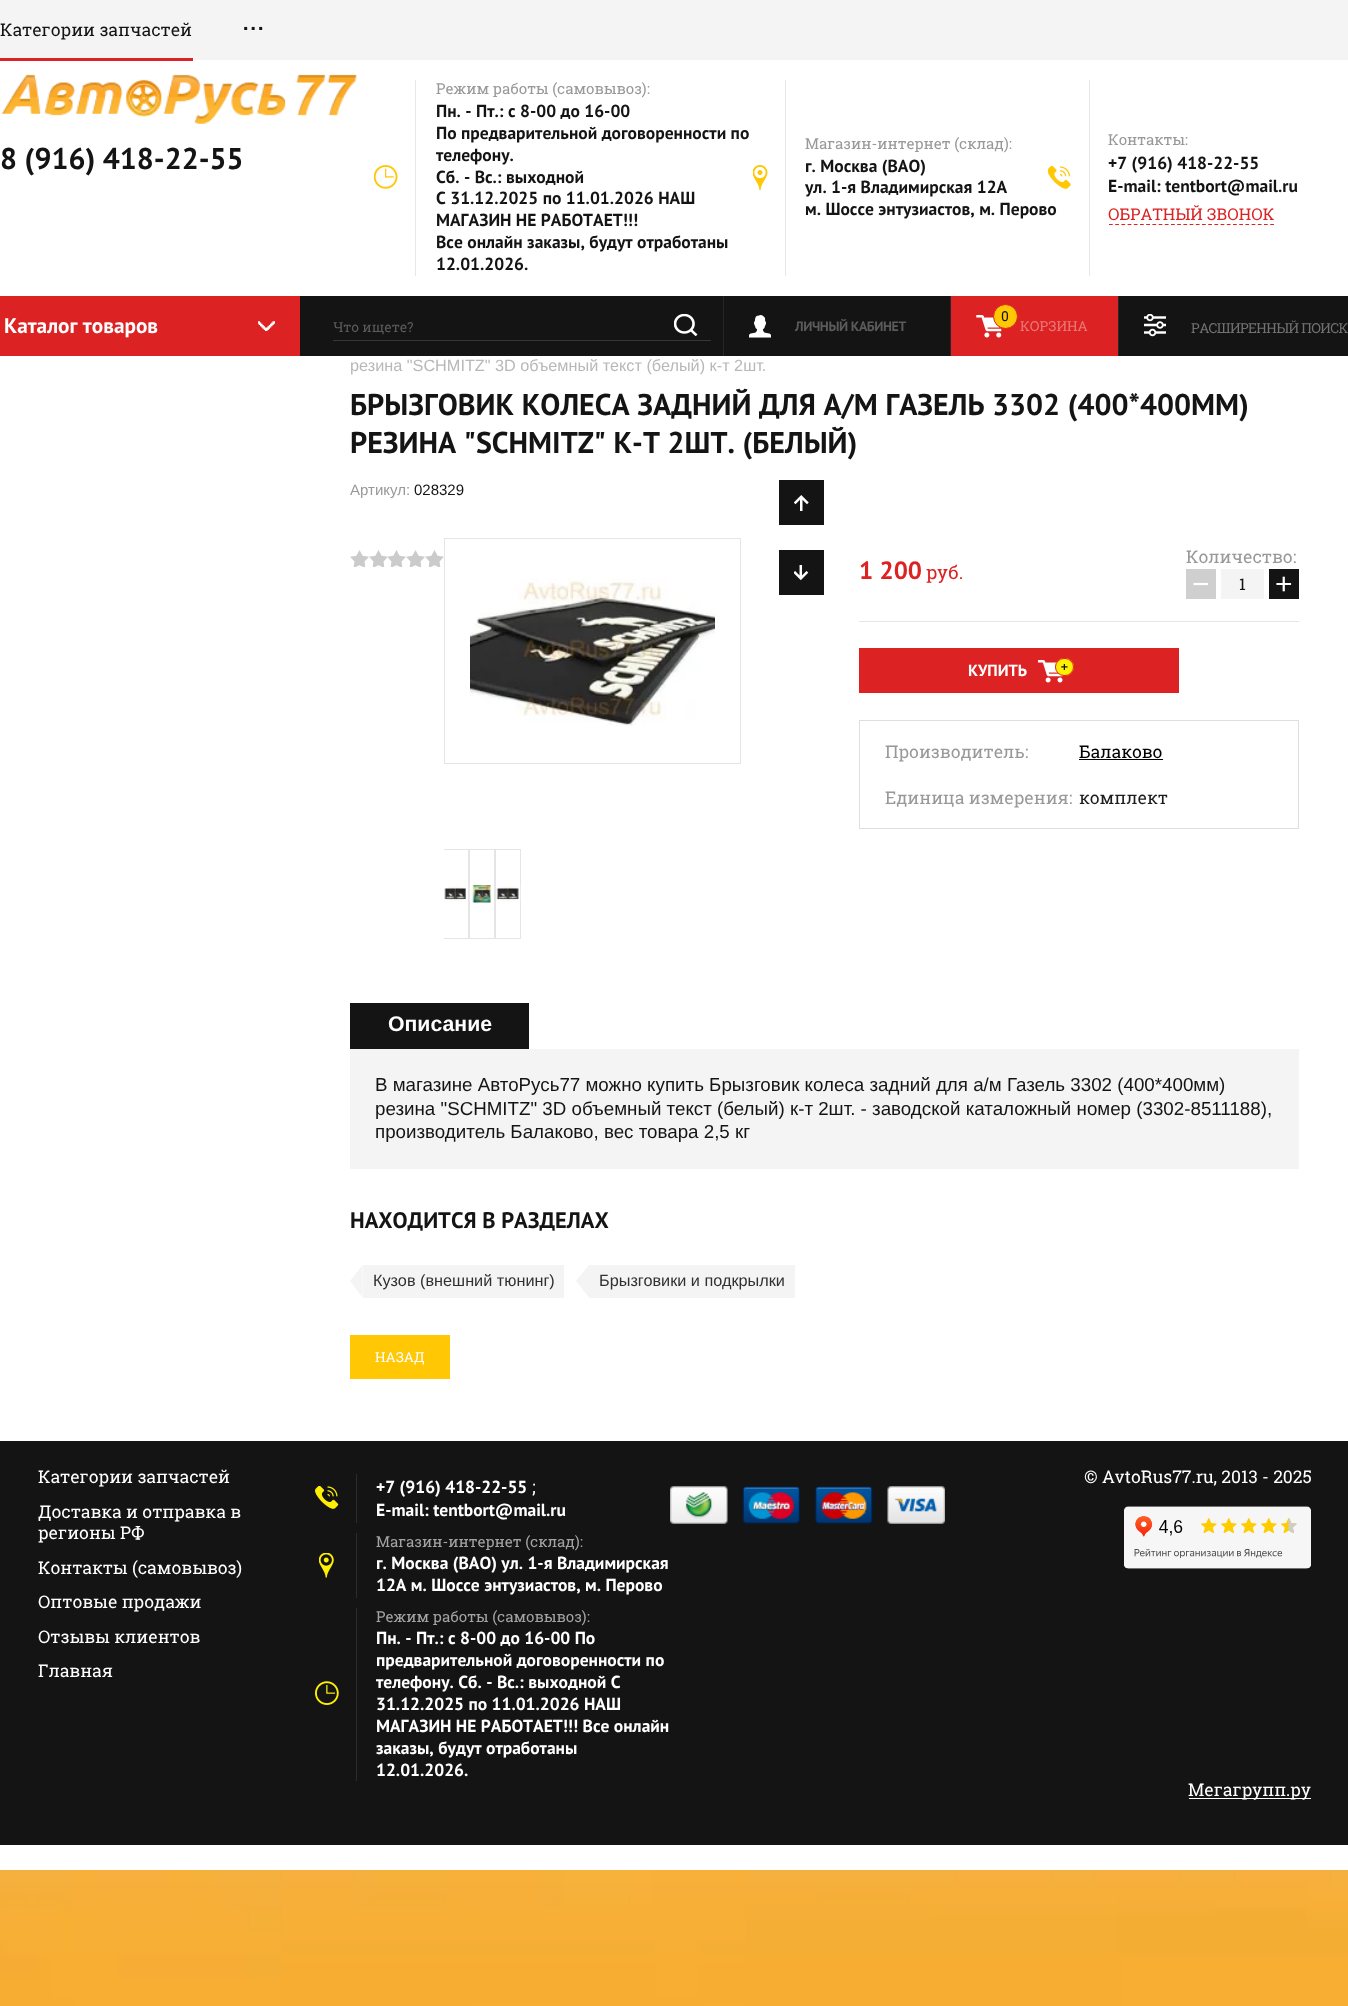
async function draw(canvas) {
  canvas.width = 1348;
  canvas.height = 2006;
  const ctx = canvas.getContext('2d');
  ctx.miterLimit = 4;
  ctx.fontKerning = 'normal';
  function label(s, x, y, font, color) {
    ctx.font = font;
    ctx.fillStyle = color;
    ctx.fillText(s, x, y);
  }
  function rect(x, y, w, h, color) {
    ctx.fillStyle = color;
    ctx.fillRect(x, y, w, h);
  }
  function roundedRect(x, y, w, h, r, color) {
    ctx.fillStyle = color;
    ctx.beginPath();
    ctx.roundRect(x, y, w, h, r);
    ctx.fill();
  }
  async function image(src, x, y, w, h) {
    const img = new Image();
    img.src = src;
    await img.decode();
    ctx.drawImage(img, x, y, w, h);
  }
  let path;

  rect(0, 0, 1348, 2006, '#fff');
  rect(0, 0, 1348, 60, '#f4f4f4');
  label('Категории запчастей', 0, 36, '17.5px Roboto Slab', '#141414');
  rect(0, 58, 193, 3, '#dc2222');
  label('...', 242, 30, '31px Roboto Slab', '#141414');
  await image('assets/img1.png', 1, 74, 356, 50);
  label('8 (916) 418-22-55', 0, 169, 'bold 30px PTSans', '#141414');
  rect(415, 80, 1, 196, '#e7e7e7');
  label('Режим работы (самовывоз):', 436, 94, '15px Roboto Slab', '#999');
  await image('assets/img2.png', 374, 165, 24, 24);
  label('Пн. - Пт.: с 8-00 до 16-00', 436, 117, 'bold 17.5px PTSans', '#141414');
  label('По предварительной договоренности по', 436, 139, 'bold 17.5px PTSans', '#141414');
  label('телефону.', 436, 161, 'bold 17.5px PTSans', '#141414');
  label('Сб. - Вс.: выходной', 436, 183, 'bold 17.5px PTSans', '#141414');
  label('С 31.12.2025 по 11.01.2026 НАШ', 436, 204, 'bold 17.5px PTSans', '#141414');
  label('МАГАЗИН НЕ РАБОТАЕТ!!!', 436, 226, 'bold 17.5px PTSans', '#141414');
  label('Все онлайн заказы, будут отработаны', 436, 248, 'bold 17.5px PTSans', '#141414');
  label('12.01.2026.', 436, 270, 'bold 17.5px PTSans', '#141414');
  rect(785, 80, 1, 196, '#e7e7e7');
  label('Магазин-интернет (склад):', 805, 149, '15px Roboto Slab', '#999');
  await image('assets/img3.png', 753, 165, 15, 25);
  label('г. Москва (ВАО)', 805, 172, 'bold 17.5px PTSans', '#141414');
  label('ул. 1-я Владимирская 12А', 805, 193, 'bold 17.5px PTSans', '#141414');
  label('м. Шоссе энтузиастов, м. Перово', 805, 215, 'bold 17.5px PTSans', '#141414');
  rect(1089, 80, 1, 196, '#e7e7e7');
  label('Контакты:', 1108, 145, '15px Roboto Slab', '#999');
  await image('assets/img4.png', 1048, 166, 23, 23);
  label('+7 (916) 418-22-55', 1108, 169, 'bold 17.5px PTSans', '#141414');
  label('E-mail: tentbort@mail.ru', 1108, 192, 'bold 17.5px PTSans', '#141414');
  path = new Path2D('M1109 224.5H1274');
  ctx.strokeStyle = '#dc2222';
  ctx.lineWidth = 1.2;
  ctx.setLineDash([3.75, 2.45]);
  ctx.stroke(path);
  label('ОБРАТНЫЙ ЗВОНОК', 1108, 220, '16.25px Roboto Slab', '#dc2222');
  rect(300, 296, 1048, 60, '#141414');
  rect(0, 296, 300, 60, '#dc2222');
  label('Каталог товаров', 4, 333, 'bold 21.25px PTSans', '#fff');
  await image('assets/img5.png', 258, 321, 17, 10);
  rect(333, 340, 378, 1, '#373737');
  label('Что ищете?', 333, 332, '13.75px Roboto Slab', '#5b5b5b');
  await image('assets/img6.png', 674, 314, 24, 22);
  await image('assets/img7.png', 749, 315, 22, 23);
  rect(950, 296, 1, 60, '#272727');
  rect(723, 296, 1, 60, '#272727');
  ctx.letterSpacing = '-0.4px';
  label('ЛИЧНЫЙ КАБИНЕТ', 795, 331, 'bold 13.75px PTSans', '#5b5b5b');
  rect(951, 296, 167, 60, '#dc2222');
  await image('assets/img8.png', 976, 315, 26, 23);
  ctx.fillStyle = '#ffc704';
  ctx.beginPath();
  ctx.arc(1005.5, 316.5, 12, 0, 2 * Math.PI);
  ctx.fill();
  ctx.lineWidth = 1;
  ctx.setLineDash([]);
  ctx.stroke();
  ctx.letterSpacing = '0px';
  label('0', 1001, 321, '13.75px Roboto Slab', '#141414');
  label('КОРЗИНА', 1020, 331, '13.75px Roboto Slab', '#ea7a7a');
  await image('assets/img9.png', 1144, 314, 22, 23);
  rect(1118, 296, 1, 60, '#272727');
  ctx.letterSpacing = '-0.6px';
  label('РАСШИРЕННЫЙ ПОИСК', 1191, 333, '13.75px Roboto Slab', '#727272');
  ctx.letterSpacing = '0px';
  label('резина "SCHMITZ" 3D объемный текст (белый) к-т 2шт.', 350, 371, '16.25px Liberation Sans', '#b8b8b8');
  label('БРЫЗГОВИК КОЛЕСА ЗАДНИЙ ДЛЯ А/М ГАЗЕЛЬ 3302 (400*400ММ)', 350, 415, 'bold 30px PTSans', '#141414');
  label('РЕЗИНА "SCHMITZ" К-Т 2ШТ. (БЕЛЫЙ)', 350, 453, 'bold 30px PTSans', '#141414');
  label('Артикул:', 350, 495, '15px Liberation Sans', '#999');
  label('028329', 414, 495, '15px Liberation Sans', '#141414');
  await image('assets/img10.png', 350, 550, 94, 18);
  ctx.strokeStyle = '#e5e5e5';
  ctx.strokeRect(444.5, 538.5, 296, 225);
  await image('assets/img11.png', 470, 578, 245, 148);
  ctx.save();
  ctx.beginPath();
  ctx.rect(444, 849, 272, 102);
  ctx.clip();
  ctx.strokeRect(443.5, 849.5, 25, 89);
  ctx.restore();
  await image('assets/img12.png', 444, 885, 22, 17);
  ctx.strokeRect(469.5, 849.5, 25, 89);
  await image('assets/img13.png', 469, 885, 23, 18);
  ctx.strokeRect(495.5, 849.5, 25, 89);
  await image('assets/img14.png', 496, 885, 25, 17);
  rect(779, 480, 45, 45, '#141414');
  await image('assets/img15.png', 794, 495, 15, 16);
  rect(779, 550, 45, 45, '#141414');
  await image('assets/img16.png', 794, 565, 15, 16);
  label('1 200', 859, 579, 'bold 25px PTSans', '#dc2222');
  label('руб.', 926, 579, '18.75px Roboto Slab', '#dc2222');
  label('Количество:', 1186, 563, '17.5px Roboto Slab', '#999');
  rect(1186, 569, 30, 30, '#cfcfcf');
  label('−', 1192, 594, '30px Liberation Sans', '#fff');
  rect(1221, 569, 43, 30, '#f4f4f4');
  label('1', 1239, 590, '16.25px Roboto Slab', '#141414');
  rect(1269, 569, 30, 30, '#141414');
  label('+', 1275, 594, '30px Liberation Sans', '#fff');
  rect(859, 621, 440, 1, '#e5e5e5');
  rect(859, 648, 320, 45, '#dc2222');
  await image('assets/img17.png', 1038, 660, 25, 23);
  label('КУПИТЬ', 968, 676, 'bold 16.25px PTSans', '#fff');
  roundedRect(1055, 658, 19, 18, 9, '#fff003');
  await image('assets/img18.png', 1061, 664, 7, 6);
  ctx.beginPath();
  ctx.roundRect(1055.5, 658.5, 18, 17, 8.5);
  ctx.strokeStyle = '#dc2222';
  ctx.stroke();
  ctx.strokeStyle = '#dedede';
  ctx.strokeRect(859.5, 720.5, 439, 108);
  label('Производитель:', 885, 758, '17.5px Roboto Slab', '#999');
  label('Балаково', 1079, 758, '17.5px Roboto Slab', '#000');
  rect(1079, 759, 84, 1, '#000');
  label('Единица измерения:', 885, 804, '17.5px Roboto Slab', '#999');
  label('комплект', 1079, 804, '17.5px Roboto Slab', '#1d1d1d');
  rect(350, 1003, 179, 46, '#141414');
  label('Описание', 388, 1031, 'bold 21.25px Liberation Sans', '#fff');
  rect(350, 1049, 949, 120, '#f4f4f4');
  label('В магазине АвтоРусь77 можно купить Брызговик колеса задний для а/м Газель 3302 (400*400мм)', 375, 1091, '18.75px Liberation Sans', '#141414');
  label('резина "SCHMITZ" 3D объемный текст (белый) к-т 2шт. - заводской каталожный номер (3302-8511188),', 375, 1115, '18.75px Liberation Sans', '#141414');
  label('производитель Балаково, вес товара 2,5 кг', 375, 1138, '18.75px Liberation Sans', '#141414');
  label('НАХОДИТСЯ В РАЗДЕЛАХ', 350, 1228, 'bold 22.5px PTSans', '#141414');
  rect(363, 1265, 201, 33, '#f4f4f4');
  path = new Path2D('M362.5 1265V1297.5L350 1281Z');
  ctx.fill(path);
  label('Кузов (внешний тюнинг)', 373, 1286, '16.25px Liberation Sans', '#313131');
  rect(589, 1265, 206, 33, '#f4f4f4');
  path = new Path2D('M589 1265V1297.5L576 1281Z');
  ctx.fill(path);
  label('Брызговики и подкрылки', 599, 1286, '16.25px Liberation Sans', '#313131');
  rect(350, 1335, 100, 44, '#ffc704');
  label('НАЗАД', 375, 1362, '13.75px Roboto Slab', '#fff');
  rect(0, 1441, 1348, 404, '#141414');
  label('Категории запчастей', 38, 1483, '17.5px Roboto Slab', '#fff');
  label('Доставка и отправка в', 38, 1518, '17.5px Roboto Slab', '#fff');
  label('регионы РФ', 38, 1539, '17.5px Roboto Slab', '#fff');
  label('Контакты (самовывоз)', 38, 1574, '17.5px Roboto Slab', '#fff');
  label('Оптовые продажи', 38, 1608, '17.5px Roboto Slab', '#fff');
  label('Отзывы клиентов', 38, 1643, '17.5px Roboto Slab', '#fff');
  label('Главная', 38, 1677, '17.5px Roboto Slab', '#fff');
  label('© AvtoRus77.ru, 2013 - 2025', 1084, 1483, '17.5px Roboto Slab', '#fff');
  await image('assets/img19.png', 1124, 1506, 187, 63);
  rect(356, 1474, 1, 49, '#2c2c2c');
  await image('assets/img20.png', 315, 1486, 24, 23);
  label('+7 (916) 418-22-55', 376, 1493, 'bold 17.5px PTSans', '#fff');
  label(';', 532, 1493, '17.5px Roboto Slab', '#fff');
  label('E-mail: tentbort@mail.ru', 376, 1516, 'bold 17.5px PTSans', '#fff');
  rect(356, 1533, 1, 65, '#2c2c2c');
  label('Магазин-интернет (склад):', 376, 1547, '15px Roboto Slab', '#a3a3a3');
  await image('assets/img21.png', 319, 1553, 15, 25);
  label('г. Москва (ВАО) ул. 1-я Владимирская', 376, 1569, 'bold 17.5px PTSans', '#fff');
  label('12А м. Шоссе энтузиастов, м. Перово', 376, 1591, 'bold 17.5px PTSans', '#fff');
  rect(356, 1608, 1, 173, '#2c2c2c');
  label('Режим работы (самовывоз):', 376, 1622, '15px Roboto Slab', '#a3a3a3');
  await image('assets/img22.png', 315, 1681, 24, 24);
  label('Пн. - Пт.: с 8-00 до 16-00 По', 376, 1644, 'bold 17.5px PTSans', '#fff');
  label('предварительной договоренности по', 376, 1666, 'bold 17.5px PTSans', '#fff');
  label('телефону. Сб. - Вс.: выходной С', 376, 1688, 'bold 17.5px PTSans', '#fff');
  label('31.12.2025 по 11.01.2026 НАШ', 376, 1710, 'bold 17.5px PTSans', '#fff');
  label('МАГАЗИН НЕ РАБОТАЕТ!!! Все онлайн', 376, 1732, 'bold 17.5px PTSans', '#fff');
  label('заказы, будут отработаны', 376, 1754, 'bold 17.5px PTSans', '#fff');
  label('12.01.2026.', 376, 1776, 'bold 17.5px PTSans', '#fff');
  await image('assets/img23.png', 670, 1486, 58, 38);
  await image('assets/img24.png', 742, 1486, 58, 38);
  await image('assets/img25.png', 815, 1486, 58, 38);
  await image('assets/img26.png', 887, 1486, 58, 38);
  rect(1189, 1798, 122, 1, '#fff');
  label('Мегагрупп.ру', 1188, 1796, '17.5px Roboto Slab', '#fff');
  await image('assets/img27.png', 0, 1870, 1348, 136);
}

draw(document.querySelector('canvas'));
